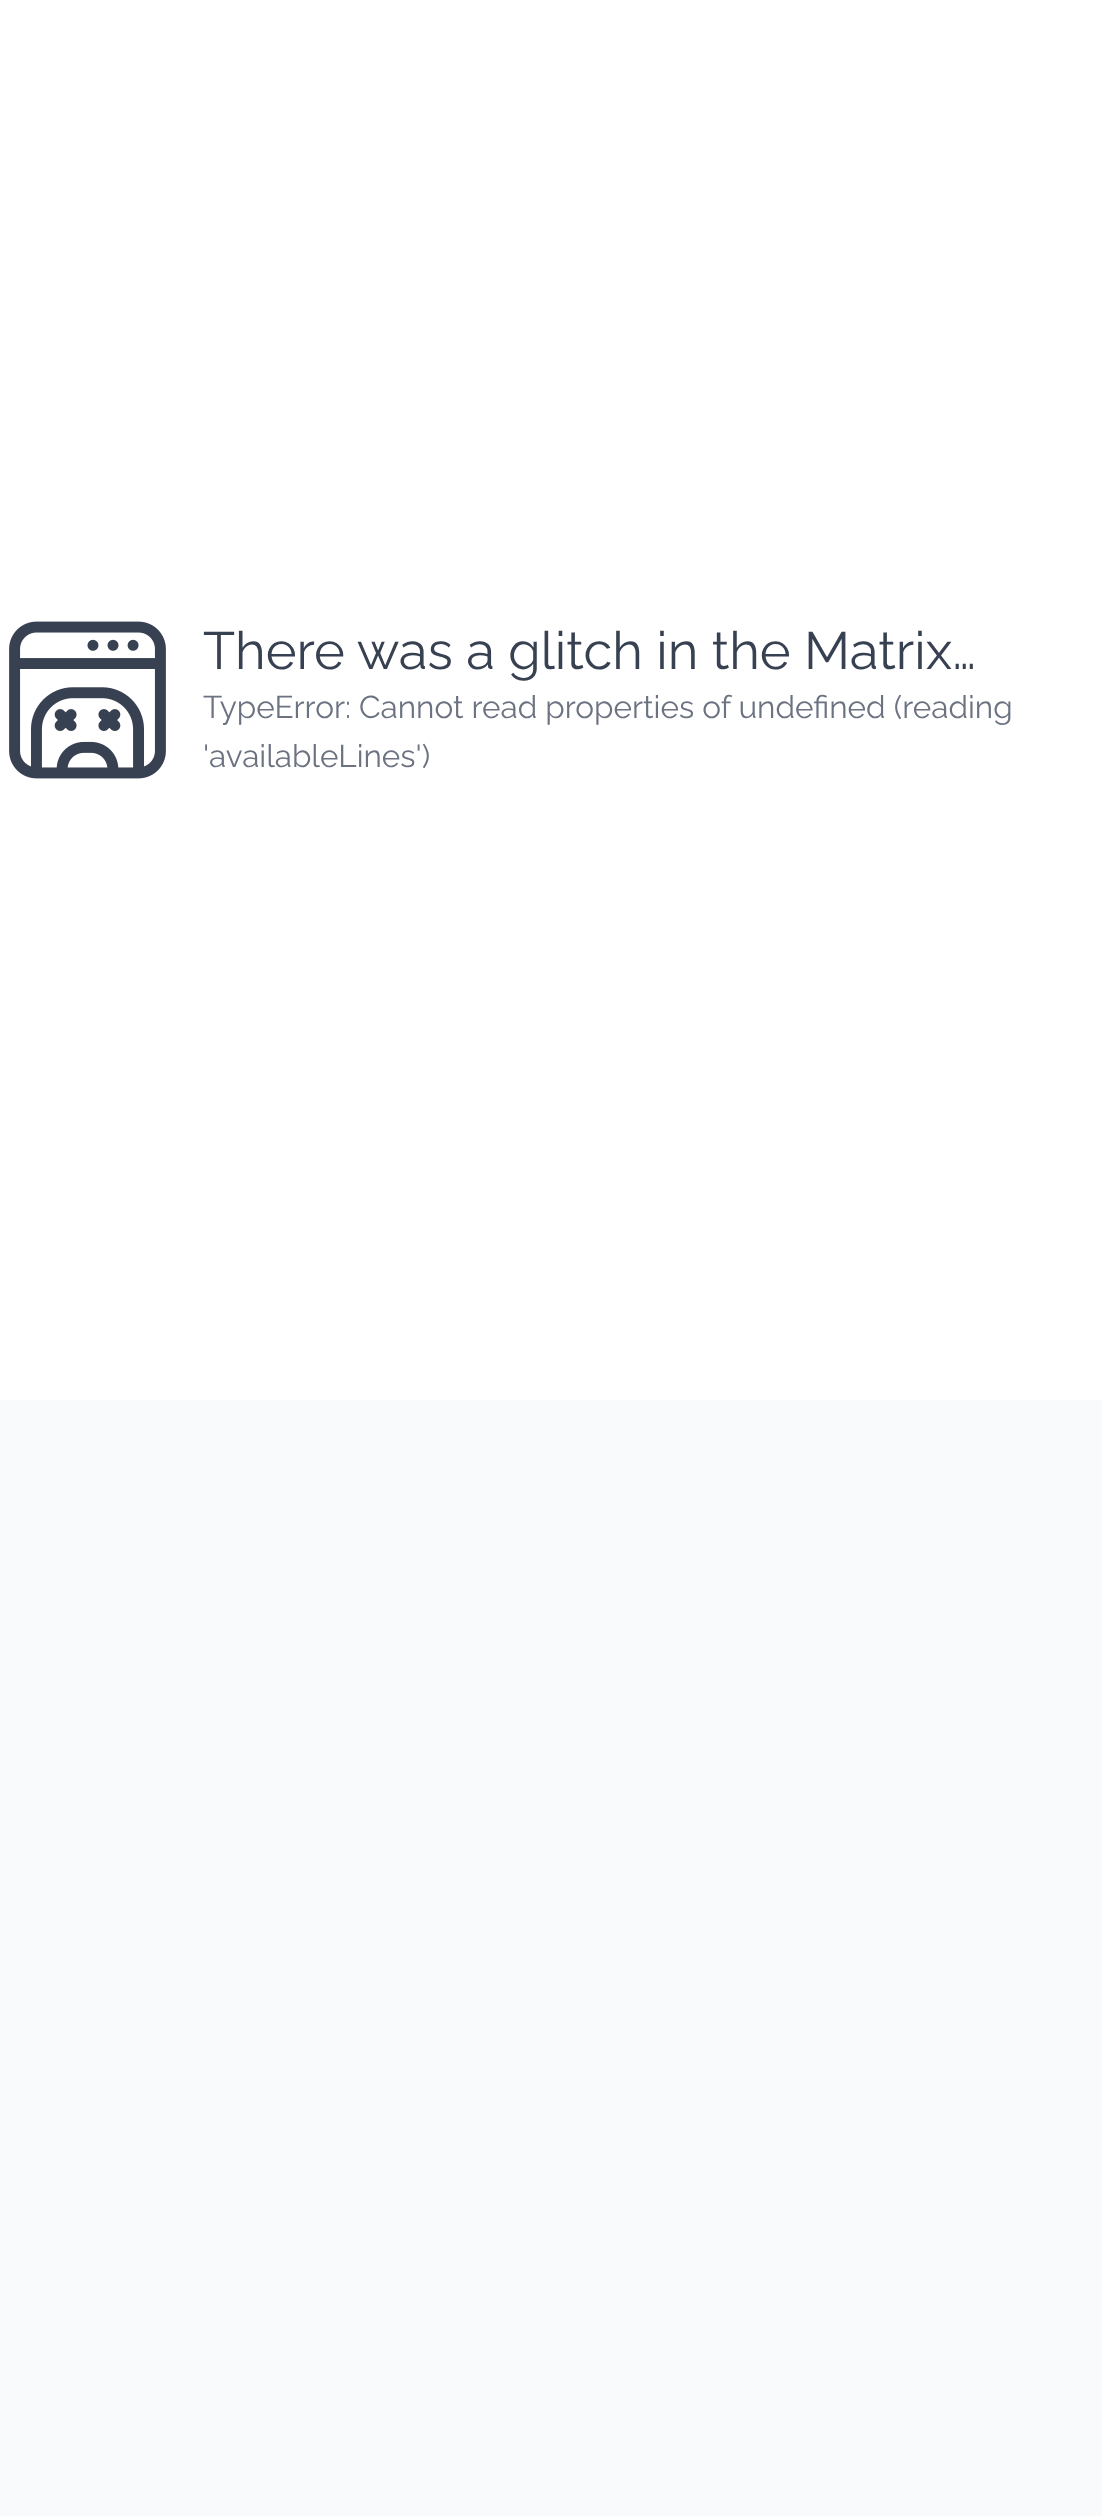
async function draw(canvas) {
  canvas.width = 1102;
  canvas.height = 2516;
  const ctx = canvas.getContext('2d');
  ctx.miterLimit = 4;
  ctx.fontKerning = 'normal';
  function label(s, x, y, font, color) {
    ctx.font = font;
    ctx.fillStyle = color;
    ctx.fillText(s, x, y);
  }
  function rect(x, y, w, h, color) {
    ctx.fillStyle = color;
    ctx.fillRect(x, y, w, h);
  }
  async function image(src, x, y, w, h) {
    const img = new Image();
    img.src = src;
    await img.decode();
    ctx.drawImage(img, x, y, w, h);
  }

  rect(0, 0, 1102, 2516, '#f9fafb');
  rect(0, 0, 1102, 1400, '#fff');
  await image('assets/img1.png', 9, 621, 157, 158);
  label('There was a glitch in the Matrix…', 203, 669, '52.5px Raleway', '#374151');
  label('TypeError: Cannot read properties of undefined (reading', 203, 718, '31.5px Raleway', '#6b7280');
  label('\'availableLines\')', 203, 767, '31.5px Raleway', '#6b7280');
}

draw(document.querySelector('canvas'));
